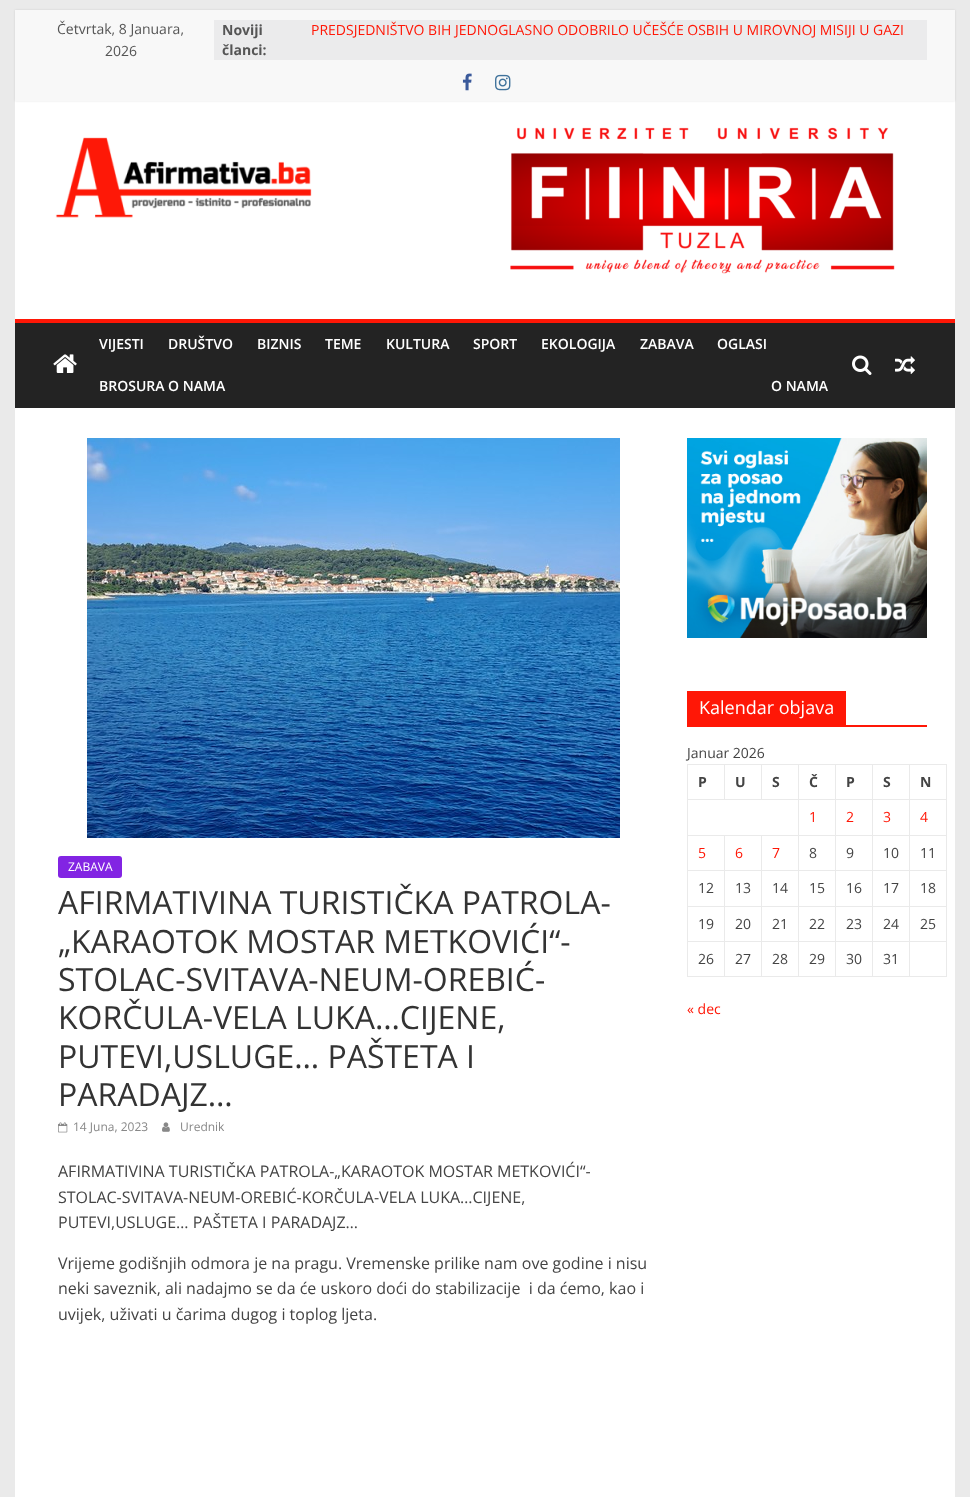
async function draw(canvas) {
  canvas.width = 970;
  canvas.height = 1497;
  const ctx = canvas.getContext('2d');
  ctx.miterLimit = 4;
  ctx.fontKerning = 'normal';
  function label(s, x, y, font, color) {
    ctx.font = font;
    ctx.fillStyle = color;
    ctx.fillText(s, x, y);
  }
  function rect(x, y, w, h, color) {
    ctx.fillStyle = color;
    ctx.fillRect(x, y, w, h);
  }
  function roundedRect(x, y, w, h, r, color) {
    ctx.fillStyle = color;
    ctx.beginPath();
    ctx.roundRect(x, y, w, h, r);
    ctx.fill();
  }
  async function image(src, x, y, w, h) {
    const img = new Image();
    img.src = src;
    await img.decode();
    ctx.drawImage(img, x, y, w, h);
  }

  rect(0, 0, 970, 1497, '#eaeaea');
  rect(15, 101, 940, 218, '#fff');
  ctx.fillStyle = '#0000001a';
  ctx.filter = 'blur(1px)';
  ctx.beginPath();
  ctx.rect(15, 10, 940, 91);
  ctx.fill();
  ctx.filter = 'none';
  rect(15, 10, 940, 91, '#f8f8f8');
  label('Četvrtak, 8 Januara,', 57, 34, '14px Open Sans', '#555');
  label('2026', 105, 56, '14px Open Sans', '#555');
  rect(214, 20, 713, 40, '#ebebec');
  label('Noviji', 222, 35, 'bold 14px Open Sans', '#555');
  label('članci:', 222, 55, 'bold 14px Open Sans', '#555');
  label('PREDSJEDNIŠTVO BIH JEDNOGLASNO ODOBRILO UČEŠĆE OSBIH U MIROVNOJ MISIJI U GAZI', 311, 35, '14px Open Sans', '#ff1706');
  await image('assets/img1.png', 462, 73, 10, 18);
  await image('assets/img2.png', 495, 74, 16, 17);
  await image('assets/img3.png', 55, 137, 257, 81);
  await image('assets/img4.png', 510, 127, 385, 147);
  rect(15, 323, 940, 85, '#232323');
  rect(15, 319, 940, 4, '#ff1706');
  await image('assets/img5.png', 53, 354, 24, 19);
  label('VIJESTI', 99, 349, '600 14px Open Sans', '#fff');
  label('DRUŠTVO', 168, 349, '600 14px Open Sans', '#fff');
  label('BIZNIS', 257, 349, '600 14px Open Sans', '#fff');
  label('TEME', 325, 349, '600 14px Open Sans', '#fff');
  label('KULTURA', 386, 349, '600 14px Open Sans', '#fff');
  label('SPORT', 473, 349, '600 14px Open Sans', '#fff');
  label('EKOLOGIJA', 541, 349, '600 14px Open Sans', '#fff');
  label('ZABAVA', 640, 349, '600 14px Open Sans', '#fff');
  label('OGLASI', 717, 349, '600 14px Open Sans', '#fff');
  label('BROSURA O NAMA', 99, 391, '600 14px Open Sans', '#fff');
  label('O NAMA', 771, 391, '600 14px Open Sans', '#fff');
  await image('assets/img6.png', 852, 355, 20, 20);
  await image('assets/img7.png', 895, 356, 20, 18);
  rect(15, 408, 940, 1089, '#fff');
  await image('assets/img8.png', 87, 438, 533, 400);
  roundedRect(58, 856, 64, 22, 3, '#8224e3');
  label('ZABAVA', 68, 871, '12px Open Sans', '#fff');
  label('AFIRMATIVINA TURISTIČKA PATROLA-', 58, 914, '32px Open Sans', '#333');
  label('„KARAOTOK MOSTAR METKOVIĆI“-', 58, 953, '32px Open Sans', '#333');
  label('STOLAC-SVITAVA-NEUM-OREBIĆ-', 58, 991, '32px Open Sans', '#333');
  label('KORČULA-VELA LUKA…CIJENE,', 58, 1029, '32px Open Sans', '#333');
  label('PUTEVI,USLUGE… PAŠTETA I', 58, 1068, '32px Open Sans', '#333');
  label('PARADAJZ…', 58, 1106, '32px Open Sans', '#333');
  await image('assets/img9.png', 58, 1122, 10, 11);
  label('14 Juna, 2023', 73, 1131, '12px Open Sans', '#888');
  await image('assets/img10.png', 162, 1122, 8, 10);
  label('Urednik', 180, 1131, '12px Open Sans', '#888');
  label('AFIRMATIVINA TURISTIČKA PATROLA-„KARAOTOK MOSTAR METKOVIĆI“-', 58, 1177, '16px Open Sans', '#444');
  label('STOLAC-SVITAVA-NEUM-OREBIĆ-KORČULA-VELA LUKA…CIJENE,', 58, 1203, '16px Open Sans', '#444');
  label('PUTEVI,USLUGE… PAŠTETA I PARADAJZ…', 58, 1228, '16px Open Sans', '#444');
  label('Vrijeme godišnjih odmora je na pragu. Vremenske prilike nam ove godine i nisu', 58, 1269, '16px Open Sans', '#444');
  label('neki saveznik, ali nadajmo se da će uskoro doći do stabilizacije  i da ćemo, kao i', 58, 1294, '16px Open Sans', '#444');
  label('uvijek, uživati u čarima dugog i toplog ljeta.', 58, 1320, '16px Open Sans', '#444');
  await image('assets/img11.png', 687, 438, 240, 200);
  rect(687, 725, 240, 2, '#ff1706');
  rect(687, 691, 159, 34, '#ff1706');
  label('Kalendar objava', 699, 714, '18px Open Sans', '#fff');
  label('Januar 2026', 687, 758, '14px Open Sans', '#444');
  rect(909, 764, 38, 1, '#eaeaea');
  rect(909, 799, 38, 1, '#eaeaea');
  rect(909, 835, 38, 1, '#eaeaea');
  rect(909, 870, 38, 1, '#eaeaea');
  rect(909, 906, 38, 1, '#eaeaea');
  rect(909, 941, 38, 1, '#eaeaea');
  rect(946, 941, 1, 36, '#eaeaea');
  rect(909, 976, 38, 1, '#eaeaea');
  rect(909, 941, 1, 36, '#eaeaea');
  rect(872, 941, 38, 1, '#eaeaea');
  rect(909, 906, 1, 36, '#eaeaea');
  rect(872, 906, 38, 1, '#eaeaea');
  rect(909, 870, 1, 37, '#eaeaea');
  rect(872, 870, 38, 1, '#eaeaea');
  rect(909, 835, 1, 36, '#eaeaea');
  rect(872, 835, 38, 1, '#eaeaea');
  rect(909, 799, 1, 37, '#eaeaea');
  rect(872, 799, 38, 1, '#eaeaea');
  rect(909, 764, 1, 36, '#eaeaea');
  rect(872, 764, 38, 1, '#eaeaea');
  rect(872, 976, 38, 1, '#eaeaea');
  rect(872, 941, 1, 36, '#eaeaea');
  rect(835, 941, 38, 1, '#eaeaea');
  rect(872, 906, 1, 36, '#eaeaea');
  rect(835, 906, 38, 1, '#eaeaea');
  rect(872, 870, 1, 37, '#eaeaea');
  rect(835, 870, 38, 1, '#eaeaea');
  rect(872, 835, 1, 36, '#eaeaea');
  rect(835, 835, 38, 1, '#eaeaea');
  rect(872, 799, 1, 37, '#eaeaea');
  rect(835, 799, 38, 1, '#eaeaea');
  rect(872, 764, 1, 36, '#eaeaea');
  rect(835, 764, 38, 1, '#eaeaea');
  rect(835, 976, 38, 1, '#eaeaea');
  rect(835, 941, 1, 36, '#eaeaea');
  rect(798, 941, 38, 1, '#eaeaea');
  rect(835, 906, 1, 36, '#eaeaea');
  rect(798, 906, 38, 1, '#eaeaea');
  rect(835, 870, 1, 37, '#eaeaea');
  rect(798, 870, 38, 1, '#eaeaea');
  rect(835, 835, 1, 36, '#eaeaea');
  rect(798, 835, 38, 1, '#eaeaea');
  rect(835, 799, 1, 37, '#eaeaea');
  rect(798, 799, 38, 1, '#eaeaea');
  rect(835, 764, 1, 36, '#eaeaea');
  rect(798, 764, 38, 1, '#eaeaea');
  rect(798, 976, 38, 1, '#eaeaea');
  rect(798, 941, 1, 36, '#eaeaea');
  rect(761, 941, 38, 1, '#eaeaea');
  rect(798, 906, 1, 36, '#eaeaea');
  rect(761, 906, 38, 1, '#eaeaea');
  rect(798, 870, 1, 37, '#eaeaea');
  rect(761, 870, 38, 1, '#eaeaea');
  rect(798, 835, 1, 36, '#eaeaea');
  rect(761, 835, 38, 1, '#eaeaea');
  rect(798, 799, 1, 37, '#eaeaea');
  rect(687, 799, 112, 1, '#eaeaea');
  rect(798, 764, 1, 36, '#eaeaea');
  rect(761, 764, 38, 1, '#eaeaea');
  rect(761, 764, 1, 36, '#eaeaea');
  rect(724, 764, 38, 1, '#eaeaea');
  rect(724, 764, 1, 36, '#eaeaea');
  rect(687, 764, 38, 1, '#eaeaea');
  rect(761, 976, 38, 1, '#eaeaea');
  rect(761, 941, 1, 36, '#eaeaea');
  rect(724, 941, 38, 1, '#eaeaea');
  rect(761, 906, 1, 36, '#eaeaea');
  rect(724, 906, 38, 1, '#eaeaea');
  rect(761, 870, 1, 37, '#eaeaea');
  rect(724, 870, 38, 1, '#eaeaea');
  rect(761, 835, 1, 36, '#eaeaea');
  rect(724, 835, 38, 1, '#eaeaea');
  rect(724, 976, 38, 1, '#eaeaea');
  rect(724, 941, 1, 36, '#eaeaea');
  rect(687, 941, 38, 1, '#eaeaea');
  rect(724, 906, 1, 36, '#eaeaea');
  rect(687, 906, 38, 1, '#eaeaea');
  rect(724, 870, 1, 37, '#eaeaea');
  rect(687, 870, 38, 1, '#eaeaea');
  rect(724, 835, 1, 36, '#eaeaea');
  rect(687, 835, 38, 1, '#eaeaea');
  rect(687, 976, 38, 1, '#eaeaea');
  rect(687, 941, 1, 36, '#eaeaea');
  rect(687, 906, 1, 36, '#eaeaea');
  rect(687, 870, 1, 37, '#eaeaea');
  rect(687, 835, 1, 36, '#eaeaea');
  rect(687, 799, 1, 37, '#eaeaea');
  rect(687, 764, 1, 36, '#eaeaea');
  label('P', 698, 787, 'bold 14px Open Sans', '#444');
  label('U', 735, 787, 'bold 14px Open Sans', '#444');
  label('S', 772, 787, 'bold 14px Open Sans', '#444');
  label('Č', 809, 787, 'bold 14px Open Sans', '#444');
  label('P', 846, 787, 'bold 14px Open Sans', '#444');
  label('S', 883, 787, 'bold 14px Open Sans', '#444');
  rect(946, 906, 1, 36, '#eaeaea');
  rect(946, 870, 1, 37, '#eaeaea');
  rect(946, 835, 1, 36, '#eaeaea');
  rect(946, 799, 1, 37, '#eaeaea');
  rect(946, 764, 1, 36, '#eaeaea');
  label('N', 920, 787, 'bold 14px Open Sans', '#444');
  label('1', 809, 822, '14px Open Sans', '#ff1706');
  label('2', 846, 822, '14px Open Sans', '#ff1706');
  label('3', 883, 822, '14px Open Sans', '#ff1706');
  label('4', 920, 822, '14px Open Sans', '#ff1706');
  label('5', 698, 858, '14px Open Sans', '#ff1706');
  label('6', 735, 858, '14px Open Sans', '#ff1706');
  label('7', 772, 858, '14px Open Sans', '#ff1706');
  label('8', 809, 858, '14px Open Sans', '#444');
  label('9', 846, 858, '14px Open Sans', '#444');
  label('10', 883, 858, '14px Open Sans', '#444');
  label('11', 920, 858, '14px Open Sans', '#444');
  label('12', 698, 893, '14px Open Sans', '#444');
  label('13', 735, 893, '14px Open Sans', '#444');
  label('14', 772, 893, '14px Open Sans', '#444');
  label('15', 809, 893, '14px Open Sans', '#444');
  label('16', 846, 893, '14px Open Sans', '#444');
  label('17', 883, 893, '14px Open Sans', '#444');
  label('18', 920, 893, '14px Open Sans', '#444');
  label('19', 698, 929, '14px Open Sans', '#444');
  label('20', 735, 929, '14px Open Sans', '#444');
  label('21', 772, 929, '14px Open Sans', '#444');
  label('22', 809, 929, '14px Open Sans', '#444');
  label('23', 846, 929, '14px Open Sans', '#444');
  label('24', 883, 929, '14px Open Sans', '#444');
  label('25', 920, 929, '14px Open Sans', '#444');
  label('26', 698, 964, '14px Open Sans', '#444');
  label('27', 735, 964, '14px Open Sans', '#444');
  label('28', 772, 964, '14px Open Sans', '#444');
  label('29', 809, 964, '14px Open Sans', '#444');
  label('30', 846, 964, '14px Open Sans', '#444');
  label('31', 883, 964, '14px Open Sans', '#444');
  label('« dec', 687, 1014, '14px Open Sans', '#ff1706');
}

draw(document.querySelector('canvas'));
